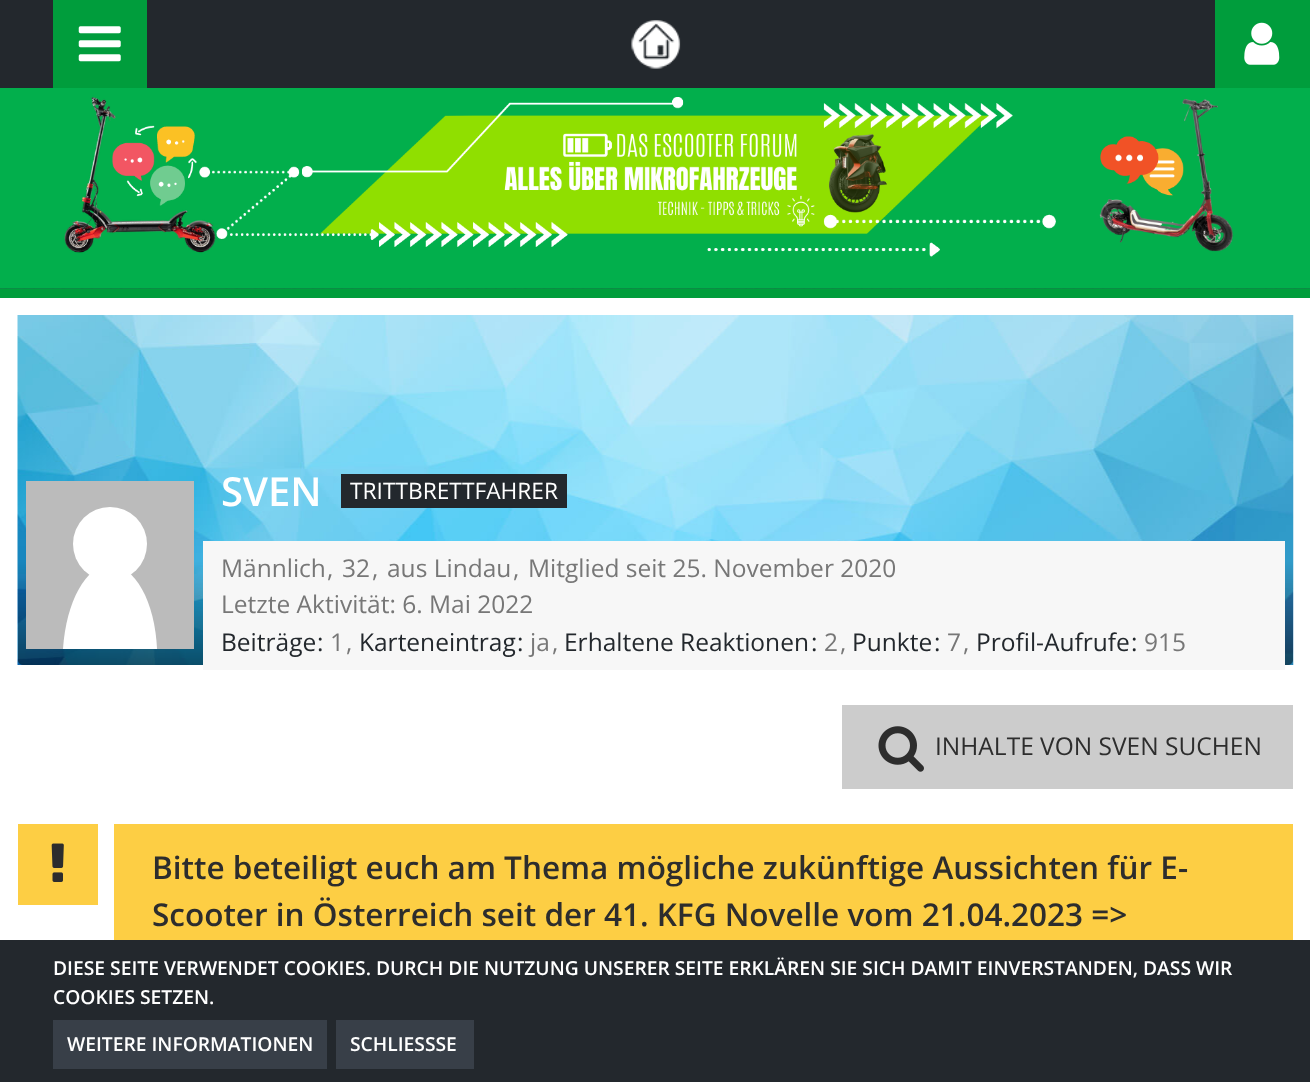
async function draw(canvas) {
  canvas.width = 1310;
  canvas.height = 1082;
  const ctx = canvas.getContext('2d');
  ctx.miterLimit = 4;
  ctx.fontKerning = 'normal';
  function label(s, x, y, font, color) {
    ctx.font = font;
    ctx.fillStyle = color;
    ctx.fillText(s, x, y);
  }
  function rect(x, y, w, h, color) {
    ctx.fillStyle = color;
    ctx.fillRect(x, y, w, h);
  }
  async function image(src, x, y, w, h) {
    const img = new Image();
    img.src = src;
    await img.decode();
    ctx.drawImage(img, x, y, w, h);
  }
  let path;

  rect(0, 0, 1310, 1082, '#fff');
  await image('assets/img1.png', 0, 288, 1310, 1);
  rect(0, 0, 1215, 88, '#23282d');
  rect(53, 0, 94, 88, '#009d3c');
  await image('assets/img2.png', 78, 26, 43, 36);
  rect(1215, 0, 95, 88, '#009d3c');
  await image('assets/img3.png', 1244, 22, 36, 43);
  await image('assets/img4.png', 0, 88, 1310, 201);
  rect(0, 289, 1310, 9, '#009d3c');
  await image('assets/img5.png', 631, 20, 50, 49);
  await image('assets/img6.png', 17, 315, 1277, 350);
  rect(26, 481, 168, 168, '#bbb');
  ctx.fillStyle = '#fff';
  path = new Path2D('M63 649C66 602 86 565 110 565C135 565 155 602 157 649');
  ctx.fill(path);
  ctx.beginPath();
  ctx.arc(110, 544, 37, 0, 2 * Math.PI);
  ctx.fill();
  label('SVEN', 221, 506, '600 40px Open Sans', '#fff');
  rect(341, 474, 226, 34, '#23282d');
  label('TRITTBRETTFAHRER', 350, 499, '22.75px Open Sans', '#fff');
  rect(203, 541, 1082, 129, '#f7f7f7');
  label('Männlich', 221, 577, '24.5px Open Sans', '#777');
  label(',', 327, 577, '24.5px Open Sans', '#777');
  label('32', 342, 577, '24.5px Open Sans', '#777');
  label(',', 372, 577, '24.5px Open Sans', '#777');
  label('aus Lindau', 387, 577, '24.5px Open Sans', '#777');
  label(',', 513, 577, '24.5px Open Sans', '#777');
  label('Mitglied seit 25. November 2020', 528, 577, '24.5px Open Sans', '#777');
  label('Letzte Aktivität: 6. Mai 2022', 221, 613, '24.5px Open Sans', '#777');
  label('Beiträge', 221, 651, '24.5px Open Sans', '#23282d');
  label(':', 317, 651, '24.5px Open Sans', '#23282d');
  label('1', 330, 651, '24.5px Open Sans', '#777');
  label(',', 346, 651, '24.5px Open Sans', '#777');
  label('Karteneintrag', 359, 651, '24.5px Open Sans', '#23282d');
  label(':', 517, 651, '24.5px Open Sans', '#23282d');
  label('ja', 530, 651, '24.5px Open Sans', '#777');
  label(',', 552, 651, '24.5px Open Sans', '#777');
  label('Erhaltene Reaktionen', 564, 651, '24.5px Open Sans', '#23282d');
  label(':', 811, 651, '24.5px Open Sans', '#23282d');
  label('2', 824, 651, '24.5px Open Sans', '#777');
  label(',', 840, 651, '24.5px Open Sans', '#777');
  label('Punkte', 852, 651, '24.5px Open Sans', '#23282d');
  label(':', 934, 651, '24.5px Open Sans', '#23282d');
  label('7', 947, 651, '24.5px Open Sans', '#777');
  label(',', 963, 651, '24.5px Open Sans', '#777');
  label('Profil-Aufrufe', 976, 651, '24.5px Open Sans', '#23282d');
  label(':', 1131, 651, '24.5px Open Sans', '#23282d');
  label('915', 1144, 651, '24.5px Open Sans', '#777');
  rect(842, 705, 451, 84, '#ccc');
  await image('assets/img7.png', 878, 726, 46, 46);
  label('INHALTE VON SVEN SUCHEN', 935, 755, '24.5px Open Sans', '#2d2d2d');
  rect(114, 824, 1179, 116, '#fdce44');
  rect(18, 824, 80, 81, '#fdce44');
  await image('assets/img8.png', 51, 843, 13, 39);
  label('Bitte beteiligt euch am Thema mögliche zukünftige Aussichten für E-', 152, 879, '600 31.5px Open Sans', '#2d2d2d');
  label('Scooter in Österreich seit der 41. KFG Novelle vom 21.04.2023 =>', 152, 926, '600 31.5px Open Sans', '#2d2d2d');
  rect(0, 940, 1310, 142, '#23282d');
  label('DIESE SEITE VERWENDET COOKIES. DURCH DIE NUTZUNG UNSERER SEITE ERKLÄREN SIE SICH DAMIT EINVERSTANDEN, DASS WIR', 53, 975, '600 19.25px Open Sans', '#fff');
  label('COOKIES SETZEN.', 53, 1004, '600 19.25px Open Sans', '#fff');
  rect(53, 1020, 274, 49, '#383f48');
  label('WEITERE INFORMATIONEN', 67, 1051, '600 19.25px Open Sans', '#fff');
  rect(336, 1020, 138, 49, '#383f48');
  label('SCHLIESSSE', 350, 1051, '600 19.25px Open Sans', '#fff');
}

draw(document.querySelector('canvas'));
